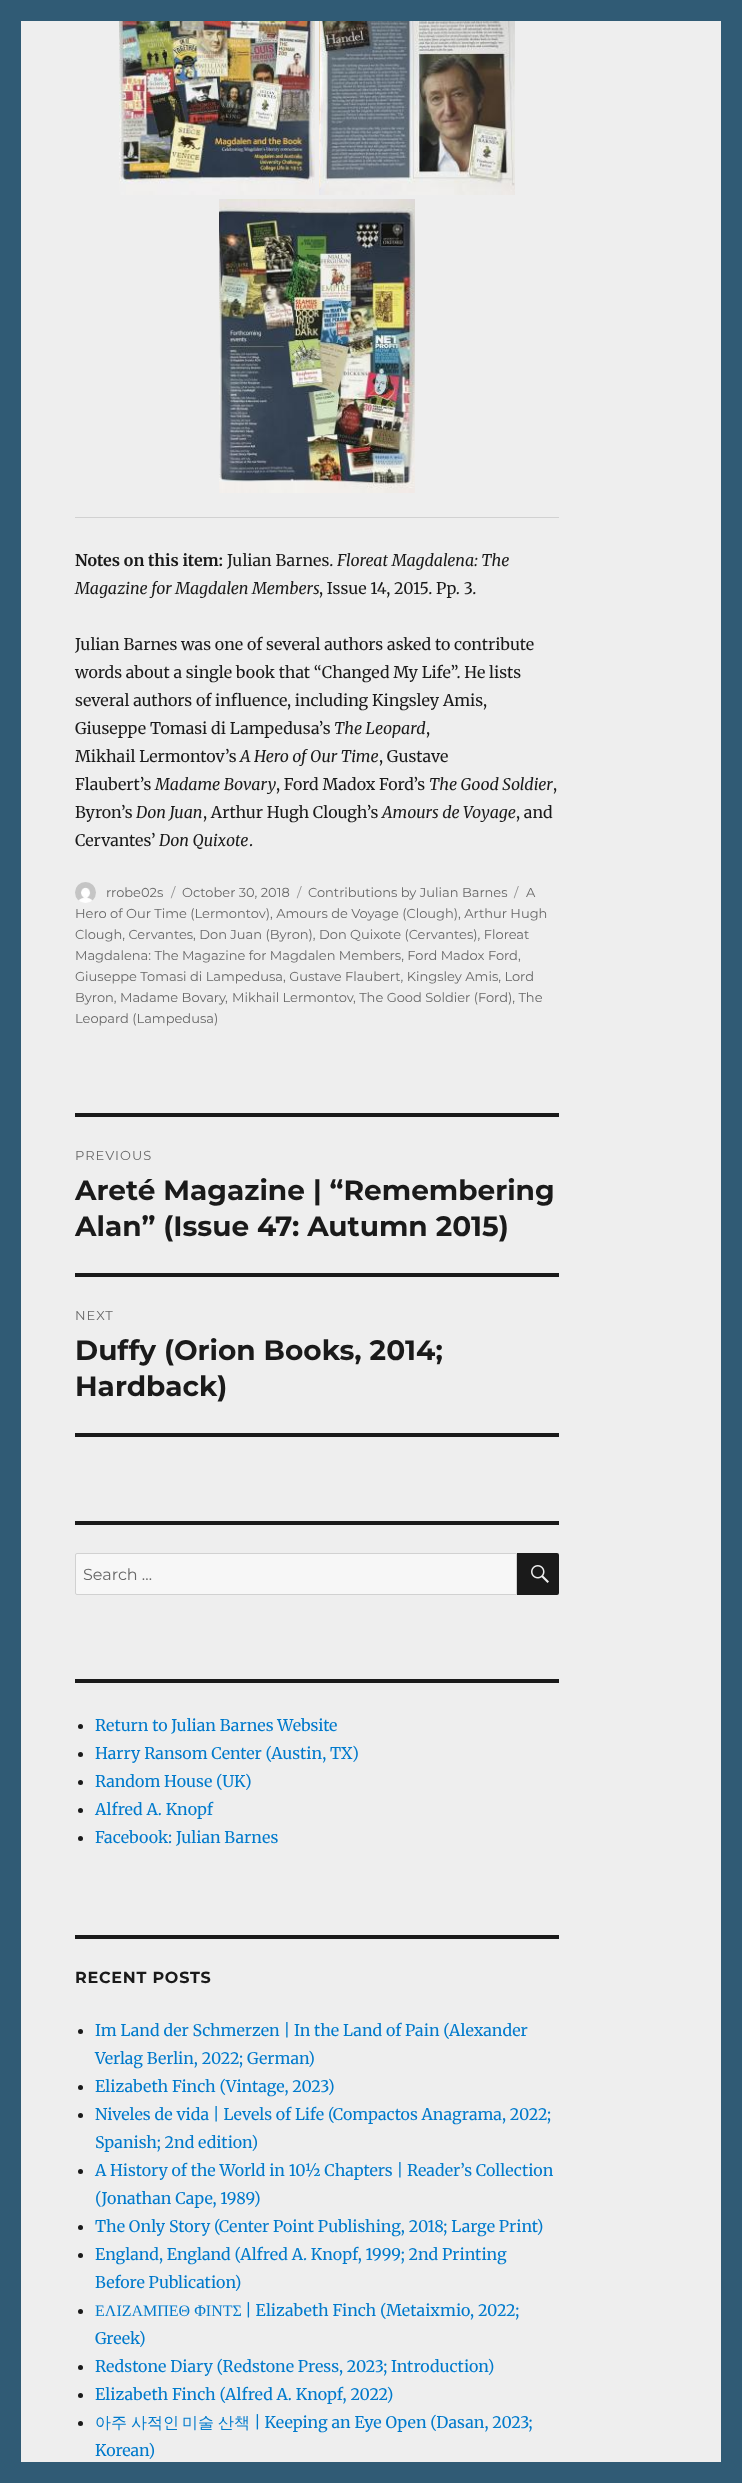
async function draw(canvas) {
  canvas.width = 742;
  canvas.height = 2483;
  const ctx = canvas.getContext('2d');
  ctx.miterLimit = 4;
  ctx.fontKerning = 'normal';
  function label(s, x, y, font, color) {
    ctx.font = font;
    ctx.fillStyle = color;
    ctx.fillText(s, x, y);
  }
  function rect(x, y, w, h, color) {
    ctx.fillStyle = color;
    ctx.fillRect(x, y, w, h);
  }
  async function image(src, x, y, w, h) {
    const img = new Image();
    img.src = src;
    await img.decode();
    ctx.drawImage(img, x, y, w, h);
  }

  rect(0, 0, 742, 2483, '#305b75');
  rect(21, 21, 700, 2441, '#eee');
  await image('assets/img1.png', 119, 21, 196, 174);
  await image('assets/img2.png', 319, 21, 196, 174);
  await image('assets/img3.png', 219, 199, 196, 294);
  rect(75, 517, 484, 1, '#d1d1d1');
  label('Notes on this item:', 75, 566, 'bold 16px Merriweather', '#1a1a1a');
  label('Julian Barnes.', 227, 566, '16px Merriweather', '#1a1a1a');
  label('Floreat Magdalena: The', 337, 566, 'italic 16px Merriweather', '#1a1a1a');
  label('Magazine for Magdalen Members', 75, 594, 'italic 16px Merriweather', '#1a1a1a');
  label(', Issue 14, 2015. Pp. 3.', 319, 594, '16px Merriweather', '#1a1a1a');
  label('Julian Barnes was one of several authors asked to contribute', 75, 650, '16px Merriweather', '#1a1a1a');
  label('words about a single book that “Changed My Life”. He lists', 75, 678, '16px Merriweather', '#1a1a1a');
  label('several authors of influence, including Kingsley Amis,', 75, 706, '16px Merriweather', '#1a1a1a');
  label('Giuseppe Tomasi di Lampedusa’s', 75, 734, '16px Merriweather', '#1a1a1a');
  label('The Leopard', 334, 734, 'italic 16px Merriweather', '#1a1a1a');
  label(',', 426, 734, '16px Merriweather', '#1a1a1a');
  label('Mikhail Lermontov’s', 75, 762, '16px Merriweather', '#1a1a1a');
  label('A Hero of Our Time', 240, 762, 'italic 16px Merriweather', '#1a1a1a');
  label(', Gustave', 379, 762, '16px Merriweather', '#1a1a1a');
  label('Flaubert’s', 75, 790, '16px Merriweather', '#1a1a1a');
  label('Madame Bovary', 155, 790, 'italic 16px Merriweather', '#1a1a1a');
  label(', Ford Madox Ford’s', 276, 790, '16px Merriweather', '#1a1a1a');
  label('The Good Soldier', 429, 790, 'italic 16px Merriweather', '#1a1a1a');
  label(',', 553, 790, '16px Merriweather', '#1a1a1a');
  label('Byron’s', 75, 818, '16px Merriweather', '#1a1a1a');
  label('Don Juan', 136, 818, 'italic 16px Merriweather', '#1a1a1a');
  label(', Arthur Hugh Clough’s', 203, 818, '16px Merriweather', '#1a1a1a');
  label('Amours de Voyage', 382, 818, 'italic 16px Merriweather', '#1a1a1a');
  label(', and', 516, 818, '16px Merriweather', '#1a1a1a');
  label('Cervantes’', 75, 846, '16px Merriweather', '#1a1a1a');
  label('Don Quixote', 159, 846, 'italic 16px Merriweather', '#1a1a1a');
  label('.', 249, 846, '16px Merriweather', '#1a1a1a');
  await image('assets/img4.png', 75, 882, 21, 21);
  label('rrobe02s', 106, 897, '13px Montserrat', '#686868');
  label('/', 171, 897, '13px Montserrat', '#909090');
  label('October 30, 2018', 182, 897, '13px Montserrat', '#686868');
  label('/', 297, 897, '13px Montserrat', '#909090');
  label('Contributions by Julian Barnes', 308, 897, '13px Montserrat', '#686868');
  label('/', 514, 897, '13px Montserrat', '#909090');
  label('A', 526, 897, '13px Montserrat', '#686868');
  label('Hero of Our Time (Lermontov), Amours de Voyage (Clough), Arthur Hugh', 75, 918, '13px Montserrat', '#686868');
  label('Clough, Cervantes, Don Juan (Byron), Don Quixote (Cervantes), Floreat', 75, 939, '13px Montserrat', '#686868');
  label('Magdalena: The Magazine for Magdalen Members, Ford Madox Ford,', 75, 960, '13px Montserrat', '#686868');
  label('Giuseppe Tomasi di Lampedusa, Gustave Flaubert, Kingsley Amis, Lord', 75, 981, '13px Montserrat', '#686868');
  label('Byron,', 75, 1002, '13px Montserrat', '#686868');
  label('Madame Bovary', 120, 1002, '13px Montserrat', '#686868');
  label(',', 225, 1002, '13px Montserrat', '#686868');
  label('Mikhail Lermontov', 232, 1002, '13px Montserrat', '#686868');
  label(', The Good Soldier (Ford), The', 353, 1002, '13px Montserrat', '#686868');
  label('Leopard (Lampedusa)', 75, 1023, '13px Montserrat', '#686868');
  rect(75, 1113, 484, 4, '#1a1a1a');
  rect(75, 1433, 484, 4, '#1a1a1a');
  ctx.letterSpacing = '1px';
  label('PREVIOUS', 75, 1160, '13px Montserrat', '#686868');
  ctx.letterSpacing = '0px';
  label('Areté Magazine | “Remembering', 75, 1200, 'bold 28px Montserrat', '#1a1a1a');
  label('Alan” (Issue 47: Autumn 2015)', 75, 1236, 'bold 28px Montserrat', '#1a1a1a');
  rect(75, 1273, 484, 4, '#1a1a1a');
  ctx.letterSpacing = '1px';
  label('NEXT', 75, 1320, '13px Montserrat', '#686868');
  ctx.letterSpacing = '0px';
  label('Duffy (Orion Books, 2014;', 75, 1360, 'bold 28px Montserrat', '#1a1a1a');
  label('Hardback)', 75, 1396, 'bold 28px Montserrat', '#1a1a1a');
  rect(75, 1521, 484, 4, '#1a1a1a');
  ctx.fillStyle = '#f7f7f7';
  ctx.beginPath();
  ctx.roundRect(75.5, 1553.5, 441, 41, [1.5, 0, 0, 1.5]);
  ctx.fill();
  ctx.strokeStyle = '#d1d1d1';
  ctx.stroke();
  label('Search …', 83, 1580, '16px Montserrat', '#686868');
  ctx.fillStyle = '#1a1a1a';
  ctx.beginPath();
  ctx.roundRect(517, 1553, 42, 42, [0, 2, 2, 0]);
  ctx.fill();
  await image('assets/img5.png', 531, 1565, 18, 18);
  rect(75, 1679, 484, 4, '#1a1a1a');
  ctx.beginPath();
  ctx.arc(80.5, 1726.5, 2.5, 0, 2 * Math.PI);
  ctx.fill();
  label('Return to Julian Barnes Website', 95, 1731, '16px Merriweather', '#007acc');
  ctx.fillStyle = '#1a1a1a';
  ctx.beginPath();
  ctx.arc(80.5, 1754.5, 2.5, 0, 2 * Math.PI);
  ctx.fill();
  label('Harry Ransom Center (Austin, TX)', 95, 1759, '16px Merriweather', '#007acc');
  ctx.fillStyle = '#1a1a1a';
  ctx.beginPath();
  ctx.arc(80.5, 1782.5, 2.5, 0, 2 * Math.PI);
  ctx.fill();
  label('Random House (UK)', 95, 1787, '16px Merriweather', '#007acc');
  ctx.fillStyle = '#1a1a1a';
  ctx.beginPath();
  ctx.arc(80.5, 1810.5, 2.5, 0, 2 * Math.PI);
  ctx.fill();
  label('Alfred A. Knopf', 95, 1815, '16px Merriweather', '#007acc');
  ctx.fillStyle = '#1a1a1a';
  ctx.beginPath();
  ctx.arc(80.5, 1838.5, 2.5, 0, 2 * Math.PI);
  ctx.fill();
  label('Facebook: Julian Barnes', 95, 1843, '16px Merriweather', '#007acc');
  rect(75, 1935, 484, 4, '#1a1a1a');
  ctx.letterSpacing = '0.75px';
  label('RECENT POSTS', 75, 1983, 'bold 16px Montserrat', '#1a1a1a');
  ctx.beginPath();
  ctx.arc(80.5, 2031.5, 2.5, 0, 2 * Math.PI);
  ctx.fill();
  ctx.letterSpacing = '0px';
  label('Im Land der Schmerzen | In the Land of Pain (Alexander', 95, 2036, '16px Merriweather', '#007acc');
  label('Verlag Berlin, 2022; German)', 95, 2064, '16px Merriweather', '#007acc');
  ctx.fillStyle = '#1a1a1a';
  ctx.beginPath();
  ctx.arc(80.5, 2087.5, 2.5, 0, 2 * Math.PI);
  ctx.fill();
  label('Elizabeth Finch (Vintage, 2023)', 95, 2092, '16px Merriweather', '#007acc');
  ctx.fillStyle = '#1a1a1a';
  ctx.beginPath();
  ctx.arc(80.5, 2115.5, 2.5, 0, 2 * Math.PI);
  ctx.fill();
  label('Niveles de vida | Levels of Life (Compactos Anagrama, 2022;', 95, 2120, '16px Merriweather', '#007acc');
  label('Spanish; 2nd edition)', 95, 2148, '16px Merriweather', '#007acc');
  ctx.fillStyle = '#1a1a1a';
  ctx.beginPath();
  ctx.arc(80.5, 2171.5, 2.5, 0, 2 * Math.PI);
  ctx.fill();
  label('A History of the World in 10½ Chapters | Reader’s Collection', 95, 2176, '16px Merriweather', '#007acc');
  label('(Jonathan Cape, 1989)', 95, 2204, '16px Merriweather', '#007acc');
  ctx.fillStyle = '#1a1a1a';
  ctx.beginPath();
  ctx.arc(80.5, 2227.5, 2.5, 0, 2 * Math.PI);
  ctx.fill();
  label('The Only Story (Center Point Publishing, 2018; Large Print)', 95, 2232, '16px Merriweather', '#007acc');
  ctx.fillStyle = '#1a1a1a';
  ctx.beginPath();
  ctx.arc(80.5, 2255.5, 2.5, 0, 2 * Math.PI);
  ctx.fill();
  label('England, England (Alfred A. Knopf, 1999; 2nd Printing', 95, 2260, '16px Merriweather', '#007acc');
  label('Before Publication)', 95, 2288, '16px Merriweather', '#007acc');
  ctx.fillStyle = '#1a1a1a';
  ctx.beginPath();
  ctx.arc(80.5, 2311.5, 2.5, 0, 2 * Math.PI);
  ctx.fill();
  label('ΕΛΙΖΑΜΠΕΘ ΦΙΝΤΣ', 95, 2316, '16px Liberation Serif', '#007acc');
  label('| Elizabeth Finch (Metaixmio, 2022;', 245, 2316, '16px Merriweather', '#007acc');
  label('Greek)', 95, 2344, '16px Merriweather', '#007acc');
  ctx.fillStyle = '#1a1a1a';
  ctx.beginPath();
  ctx.arc(80.5, 2367.5, 2.5, 0, 2 * Math.PI);
  ctx.fill();
  label('Redstone Diary (Redstone Press, 2023; Introduction)', 95, 2372, '16px Merriweather', '#007acc');
  ctx.fillStyle = '#1a1a1a';
  ctx.beginPath();
  ctx.arc(80.5, 2395.5, 2.5, 0, 2 * Math.PI);
  ctx.fill();
  label('Elizabeth Finch (Alfred A. Knopf, 2022)', 95, 2400, '16px Merriweather', '#007acc');
  ctx.fillStyle = '#1a1a1a';
  ctx.beginPath();
  ctx.arc(80.5, 2423.5, 2.5, 0, 2 * Math.PI);
  ctx.fill();
  label('아주', 95, 2428, '500 16px WenQuanYi Zen Hei', '#007acc');
  label('사적인', 131, 2428, '500 16px WenQuanYi Zen Hei', '#007acc');
  label('미술', 182, 2428, '500 16px WenQuanYi Zen Hei', '#007acc');
  label('산책', 218, 2428, '500 16px WenQuanYi Zen Hei', '#007acc');
  label('| Keeping an Eye Open (Dasan, 2023;', 254, 2428, '16px Merriweather', '#007acc');
  label('Korean)', 95, 2456, '16px Merriweather', '#007acc');
}

draw(document.querySelector('canvas'));
